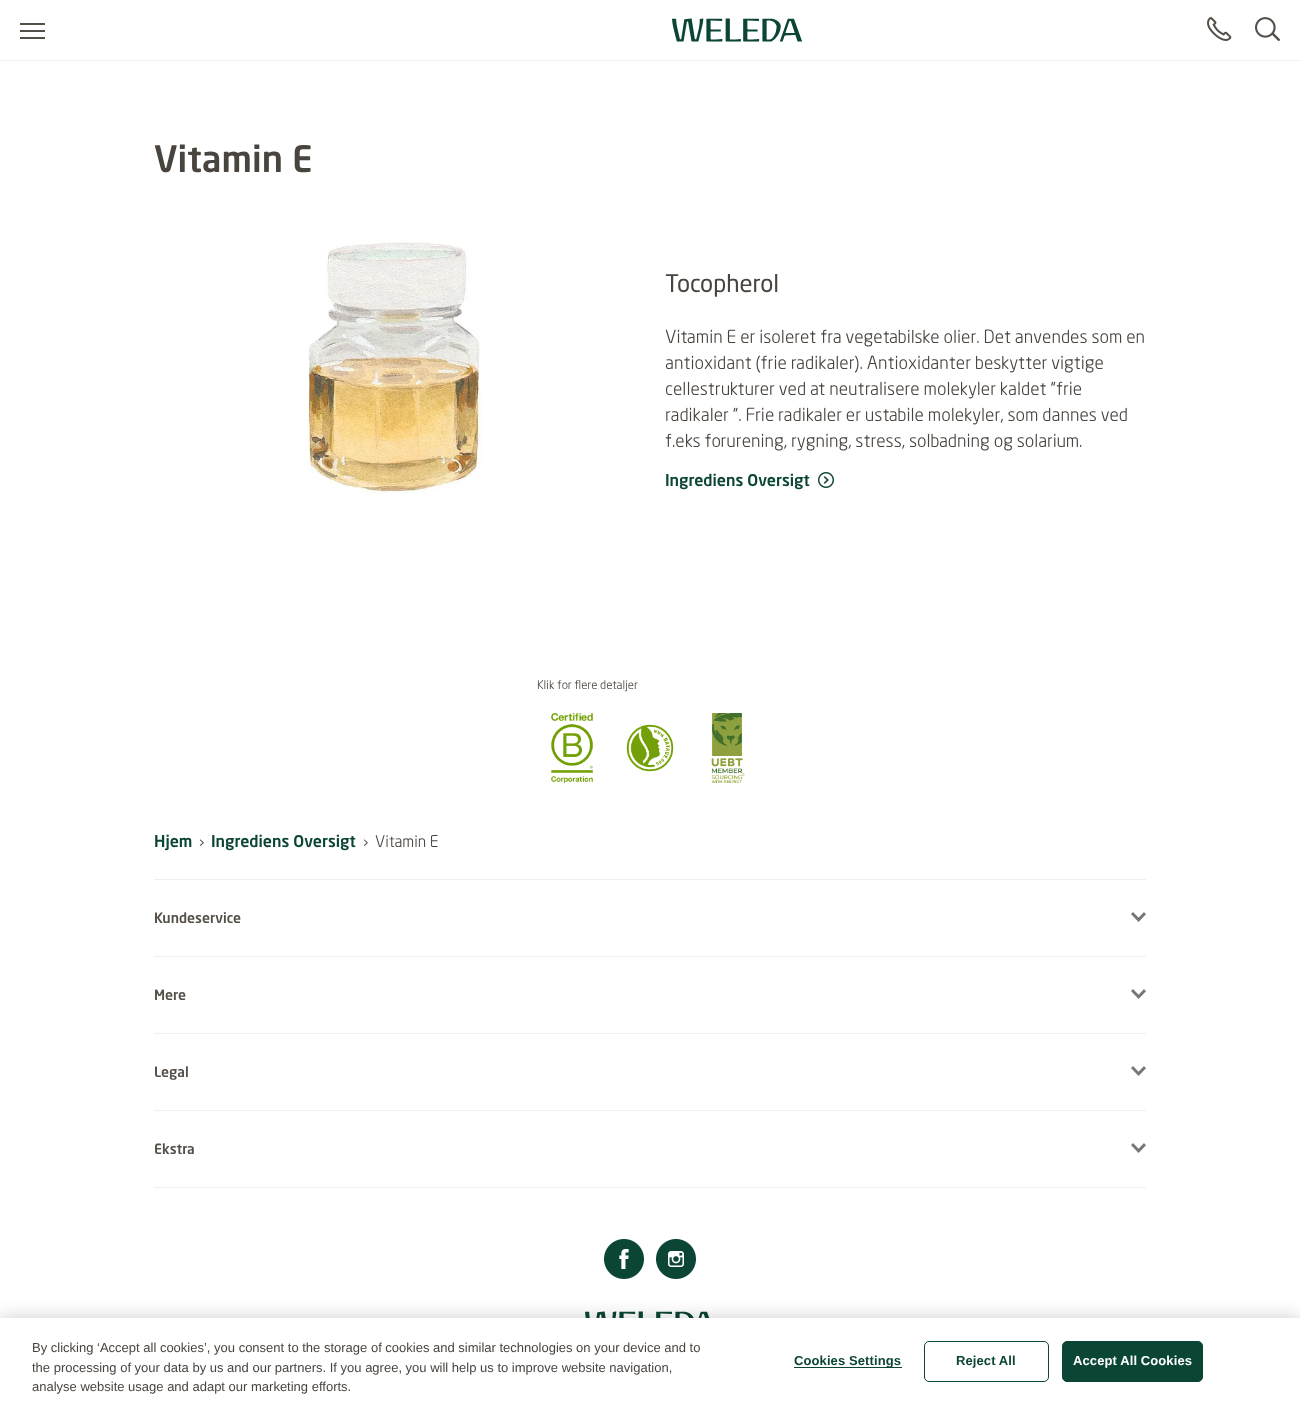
async function draw(canvas) {
  canvas.width = 1300;
  canvas.height = 1407;
  const ctx = canvas.getContext('2d');
  ctx.miterLimit = 4;
  ctx.fontKerning = 'normal';
  function label(s, x, y, font, color) {
    ctx.font = font;
    ctx.fillStyle = color;
    ctx.fillText(s, x, y);
  }
  function rect(x, y, w, h, color) {
    ctx.fillStyle = color;
    ctx.fillRect(x, y, w, h);
  }
  async function image(src, x, y, w, h) {
    const img = new Image();
    img.src = src;
    await img.decode();
    ctx.drawImage(img, x, y, w, h);
  }

  rect(0, 0, 1300, 1407, '#fff');
  rect(0, 60, 1300, 1, '#f3f0eb');
  rect(20, 30, 25, 2, '#554f49');
  rect(20, 23, 25, 2, '#554f49');
  rect(20, 37, 25, 2, '#554f49');
  await image('assets/img1.png', 672, 18, 130, 24);
  await image('assets/img2.png', 1207, 17, 25, 24);
  await image('assets/img3.png', 1255, 17, 25, 24);
  label('Vitamin E', 154, 172, 'bold 36px "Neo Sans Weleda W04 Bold"', '#4a443f');
  await image('assets/img4.png', 308, 241, 174, 253);
  label('Tocopherol', 665, 292, '500 24px "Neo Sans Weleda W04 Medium"', '#4a443f');
  label('Vitamin E er isoleret fra vegetabilske olier. Det anvendes som en', 665, 343, '18px "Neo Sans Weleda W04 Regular"', '#4a443f');
  label('antioxidant (frie radikaler). Antioxidanter beskytter vigtige', 665, 369, '18px "Neo Sans Weleda W04 Regular"', '#4a443f');
  label('cellestrukturer ved at neutralisere molekyler kaldet "frie', 665, 395, '18px "Neo Sans Weleda W04 Regular"', '#4a443f');
  label('radikaler ". Frie radikaler er ustabile molekyler, som dannes ved', 665, 421, '18px "Neo Sans Weleda W04 Regular"', '#4a443f');
  label('f.eks forurening, rygning, stress, solbadning og solarium.', 665, 447, '18px "Neo Sans Weleda W04 Regular"', '#4a443f');
  label('Ingrediens Oversigt', 665, 486, 'bold 16px "Neo Sans Weleda W04 Bold"', '#0b4535');
  await image('assets/img5.png', 818, 472, 16, 16);
  label('Klik for flere detaljer', 537, 689, '12px "Neo Sans Weleda W04 Regular"', '#4a443f');
  await image('assets/img6.png', 551, 713, 43, 70);
  await image('assets/img7.png', 626, 724, 48, 48);
  await image('assets/img8.png', 711, 713, 34, 70);
  rect(154, 879, 992, 1, '#f3f0eb');
  label('Hjem', 154, 847, 'bold 16px "Neo Sans Weleda W04 Bold"', '#0b4535');
  label('›', 199, 847, '16px "Neo Sans Weleda W04 Regular"', '#4a443f');
  label('Ingrediens Oversigt', 211, 847, 'bold 16px "Neo Sans Weleda W04 Bold"', '#0b4535');
  label('›', 363, 847, '16px "Neo Sans Weleda W04 Regular"', '#4a443f');
  label('Vitamin E', 375, 847, '16px "Neo Sans Weleda W04 Regular"', '#4a443f');
  rect(154, 956, 992, 1, '#f3f0eb');
  label('Kundeservice', 154, 923, 'bold 14px "Neo Sans Weleda W04 Bold"', '#554f49');
  await image('assets/img9.png', 1131, 912, 15, 10);
  rect(154, 1033, 992, 1, '#f3f0eb');
  label('Mere', 154, 1000, 'bold 14px "Neo Sans Weleda W04 Bold"', '#554f49');
  await image('assets/img9.png', 1131, 989, 15, 10);
  rect(154, 1110, 992, 1, '#f3f0eb');
  label('Legal', 154, 1077, 'bold 14px "Neo Sans Weleda W04 Bold"', '#554f49');
  await image('assets/img9.png', 1131, 1066, 15, 10);
  rect(154, 1187, 992, 1, '#f3f0eb');
  label('Ekstra', 154, 1154, 'bold 14px "Neo Sans Weleda W04 Bold"', '#554f49');
  await image('assets/img9.png', 1131, 1143, 15, 10);
  await image('assets/img10.png', 604, 1239, 40, 40);
  await image('assets/img11.png', 656, 1239, 40, 40);
  await image('assets/img12.png', 585, 1311, 125, 7);
  ctx.fillStyle = '#00000033';
  ctx.filter = 'blur(9px)';
  ctx.beginPath();
  ctx.rect(0, 1318, 1300, 89);
  ctx.fill();
  ctx.filter = 'none';
  rect(0, 1318, 1300, 89, '#fff');
  label('By clicking ‘Accept all cookies’, you consent to the storage of cookies and similar technologies on your device and to', 32, 1352, '13px Liberation Sans', '#4a443f');
  label('the processing of your data by us and our partners. If you agree, you will help us to improve website navigation,', 32, 1372, '13px Liberation Sans', '#4a443f');
  label('analyse website usage and adapt our marketing efforts.', 32, 1391, '13px Liberation Sans', '#4a443f');
  rect(794, 1367, 108, 1, '#0b4535');
  ctx.letterSpacing = '0.1px';
  label('Cookies Settings', 794, 1365, 'bold 13px Liberation Sans', '#0b4535');
  ctx.beginPath();
  ctx.roundRect(924.5, 1341.5, 124, 40, 4.5);
  ctx.strokeStyle = '#0b4535';
  ctx.stroke();
  label('Reject All', 956, 1365, 'bold 13px Liberation Sans', '#0b4535');
  ctx.beginPath();
  ctx.roundRect(1062.5, 1341.5, 140, 40, 4.5);
  ctx.fill();
  ctx.stroke();
  label('Accept All Cookies', 1073, 1365, 'bold 13px Liberation Sans', '#fff');
}

draw(document.querySelector('canvas'));
